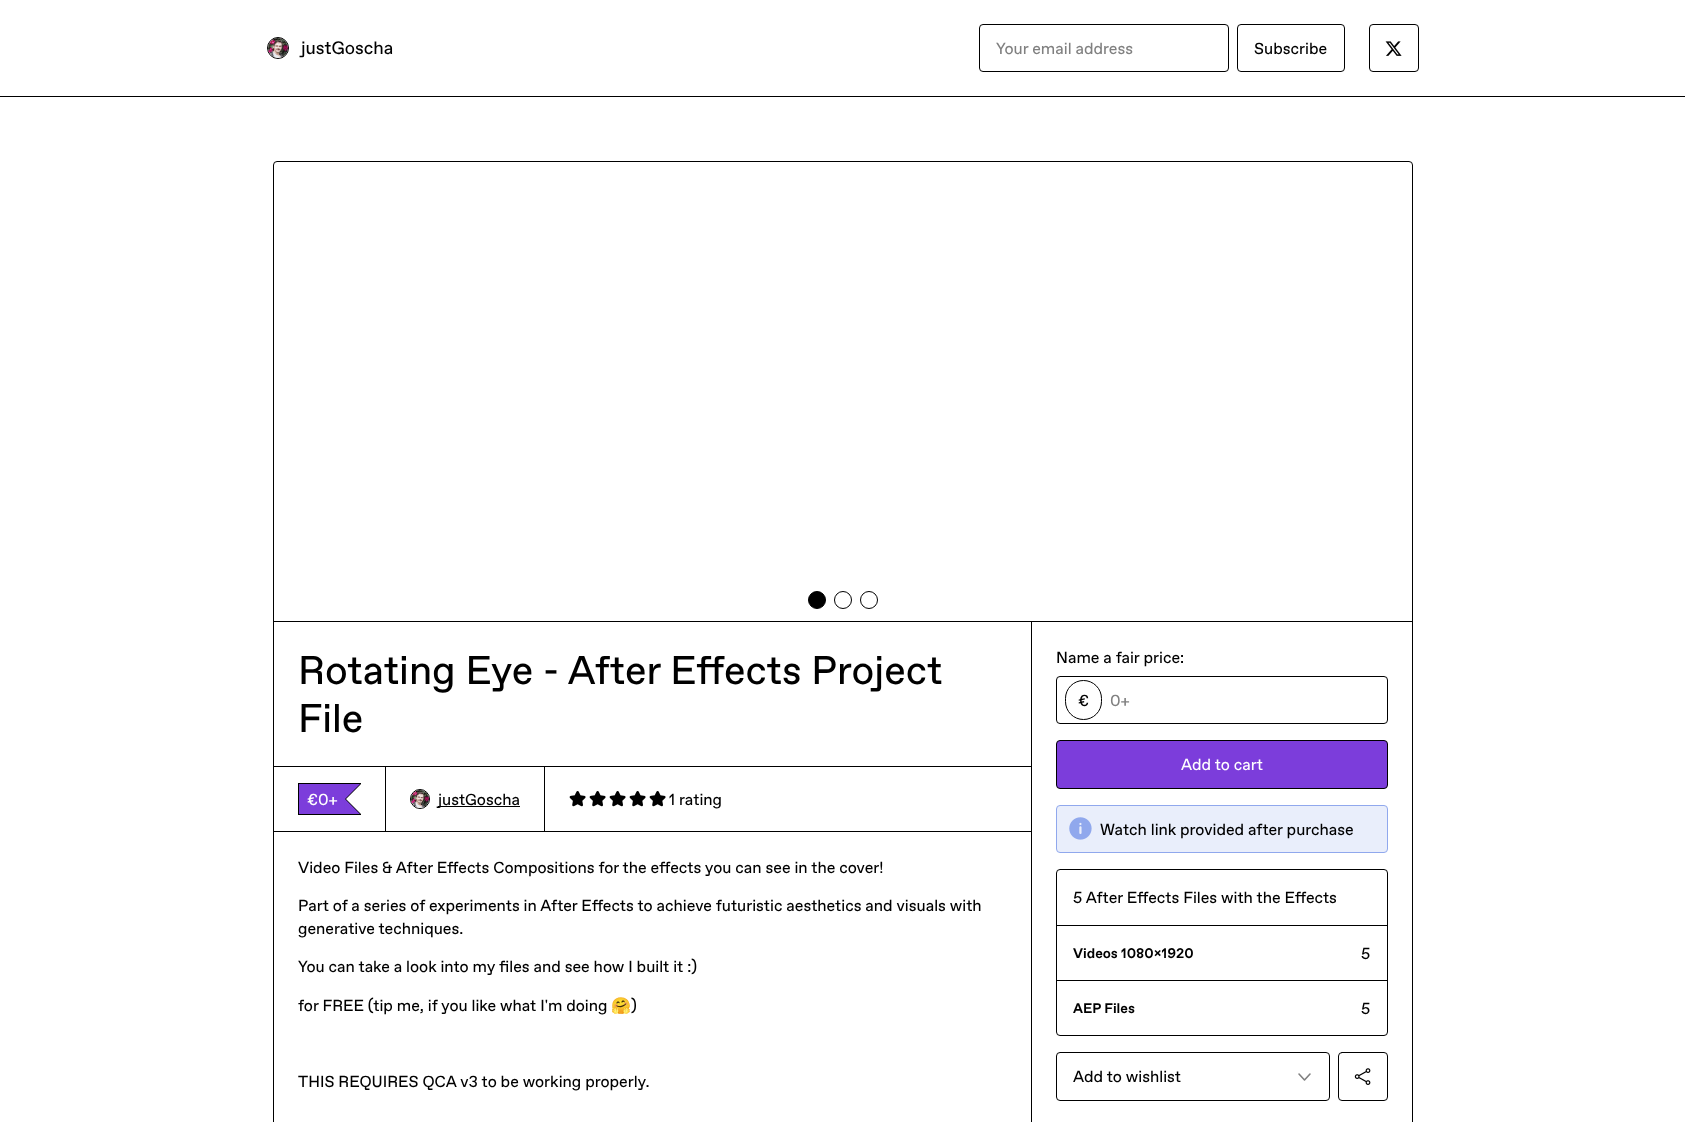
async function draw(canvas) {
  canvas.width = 1685;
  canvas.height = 1122;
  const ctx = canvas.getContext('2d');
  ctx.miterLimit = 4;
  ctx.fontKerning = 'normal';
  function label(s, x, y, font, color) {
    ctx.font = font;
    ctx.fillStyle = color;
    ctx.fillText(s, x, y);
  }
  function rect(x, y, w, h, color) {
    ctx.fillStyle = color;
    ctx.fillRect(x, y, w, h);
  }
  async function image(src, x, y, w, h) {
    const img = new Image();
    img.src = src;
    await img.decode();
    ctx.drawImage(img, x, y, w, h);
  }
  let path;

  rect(0, 0, 1685, 1122, '#fff');
  rect(0, 96, 1685, 1, '#000');
  ctx.beginPath();
  ctx.arc(278, 48, 10.5, 0, 2 * Math.PI);
  ctx.strokeStyle = '#000';
  ctx.stroke();
  await image('assets/img1.png', 268, 38, 20, 20);
  label('justGoscha', 301, 54, '18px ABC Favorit', '#000');
  ctx.beginPath();
  ctx.roundRect(979.5, 24.5, 249, 47, 3.5);
  ctx.stroke();
  label('Your email address', 996, 54, '16px ABC Favorit', '#808080');
  ctx.beginPath();
  ctx.roundRect(1237.5, 24.5, 107, 47, 3.5);
  ctx.stroke();
  label('Subscribe', 1254, 54, '16px ABC Favorit', '#000');
  ctx.beginPath();
  ctx.roundRect(1369.5, 24.5, 49, 47, 3.5);
  ctx.stroke();
  await image('assets/img2.png', 1385, 41, 17, 15);
  ctx.beginPath();
  ctx.roundRect(273.5, 161.5, 1139, 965, 3.5);
  ctx.stroke();
  rect(274, 621, 1138, 1, '#000');
  ctx.beginPath();
  ctx.arc(817, 600, 8.5, 0, 2 * Math.PI);
  ctx.fill();
  ctx.stroke();
  ctx.beginPath();
  ctx.arc(843, 600, 8.5, 0, 2 * Math.PI);
  ctx.stroke();
  ctx.beginPath();
  ctx.arc(869, 600, 8.5, 0, 2 * Math.PI);
  ctx.stroke();
  rect(1031, 622, 1, 500, '#000');
  label('Rotating Eye - After Effects Project', 298, 684, '40px ABC Favorit', '#000');
  label('File', 298, 732, '40px ABC Favorit', '#000');
  rect(545, 766, 486, 1, '#000');
  ctx.strokeRect(273.5, 766.5, 112, 65);
  rect(298, 783, 63, 1, '#000');
  rect(298, 814, 63, 1, '#000');
  rect(298, 783, 1, 32, '#000');
  rect(299, 784, 46, 30, '#7c3ddb');
  ctx.fillStyle = '#000';
  path = new Path2D('M345 784H361L346 799ZM361 814H345L346 799Z');
  ctx.fill(path);
  rect(345, 798, 1, 2, '#000');
  ctx.fillStyle = '#7c3ddb';
  path = new Path2D('M344 784H360L345 799ZM360 814H344L345 799Z');
  ctx.fill(path);
  label('€0+', 307, 805, '16px ABC Favorit', '#fff');
  ctx.strokeRect(385.5, 766.5, 159, 65);
  ctx.beginPath();
  ctx.arc(420, 799, 9.5, 0, 2 * Math.PI);
  ctx.stroke();
  await image('assets/img3.png', 411, 790, 18, 18);
  rect(438, 806, 82, 1, '#000');
  label('justGoscha', 438, 805, '16px ABC Favorit', '#000');
  await image('assets/img4.png', 569, 791, 17, 16);
  await image('assets/img4.png', 589, 791, 17, 16);
  await image('assets/img4.png', 609, 791, 17, 16);
  await image('assets/img4.png', 629, 791, 17, 16);
  await image('assets/img4.png', 649, 791, 17, 16);
  label('1 rating', 669, 805, '16px ABC Favorit', '#000');
  rect(545, 831, 486, 1, '#000');
  label('Video Files & After Effects Compositions for the effects you can see in the cover!', 298, 873, '16px ABC Favorit', '#000');
  label('Part of a series of experiments in After Effects to achieve futuristic aesthetics and visuals with', 298, 911, '16px ABC Favorit', '#000');
  label('generative techniques.', 298, 934, '16px ABC Favorit', '#000');
  label('You can take a look into my files and see how I built it :)', 298, 972, '16px ABC Favorit', '#000');
  label('for FREE (tip me, if you like what I\'m doing', 298, 1011, '16px ABC Favorit', '#000');
  label('🤗', 611, 1011, '16px Noto Color Emoji', '#000');
  label(')', 631, 1011, '16px ABC Favorit', '#000');
  label('THIS REQUIRES QCA v3 to be working properly.', 298, 1087, '16px ABC Favorit', '#000');
  label('Name a fair price:', 1056, 663, '16px ABC Favorit', '#000');
  ctx.beginPath();
  ctx.roundRect(1056.5, 676.5, 331, 47, 3.5);
  ctx.stroke();
  ctx.beginPath();
  ctx.roundRect(1065.5, 680.5, 36, 39, 18);
  ctx.stroke();
  label('€', 1078, 706, '16px ABC Favorit', '#000');
  label('0+', 1110, 706, '16px ABC Favorit', '#808080');
  ctx.fillStyle = '#7c3ddb';
  ctx.beginPath();
  ctx.roundRect(1056.5, 740.5, 331, 48, 3.5);
  ctx.fill();
  ctx.stroke();
  label('Add to cart', 1181, 770, '16px ABC Favorit', '#fff');
  ctx.fillStyle = '#e9eefb';
  ctx.beginPath();
  ctx.roundRect(1056.5, 805.5, 331, 47, 3.5);
  ctx.fill();
  ctx.strokeStyle = '#90a8ed';
  ctx.stroke();
  await image('assets/img5.png', 1069, 817, 23, 23);
  label('Watch link provided after purchase', 1100, 835, '16px ABC Favorit', '#000');
  ctx.beginPath();
  ctx.roundRect(1056.5, 869.5, 331, 166, 3.5);
  ctx.strokeStyle = '#000';
  ctx.stroke();
  rect(1057, 925, 330, 1, '#000');
  label('5 After Effects Files with the Effects', 1073, 903, '16px ABC Favorit', '#000');
  rect(1057, 980, 330, 1, '#000');
  label('Videos 1080x1920', 1073, 958, 'bold 14px ABC Favorit', '#000');
  label('5', 1361, 959, '16px ABC Favorit', '#000');
  label('AEP Files', 1073, 1013, 'bold 14px ABC Favorit', '#000');
  label('5', 1361, 1014, '16px ABC Favorit', '#000');
  ctx.beginPath();
  ctx.roundRect(1056.5, 1052.5, 273, 48, 3.5);
  ctx.stroke();
  label('Add to wishlist', 1073, 1082, '16px ABC Favorit', '#000');
  path = new Path2D('M1310 1074L1304.5 1080L1299 1074');
  ctx.strokeStyle = '#808080';
  ctx.lineWidth = 1.6;
  ctx.lineCap = 'round';
  ctx.lineJoin = 'round';
  ctx.stroke(path);
  ctx.beginPath();
  ctx.roundRect(1338.5, 1052.5, 49, 48, 3.5);
  ctx.strokeStyle = '#000';
  ctx.lineWidth = 1;
  ctx.lineJoin = 'miter';
  ctx.stroke();
  await image('assets/img6.png', 1354, 1068, 17, 17);
}

draw(document.querySelector('canvas'));
